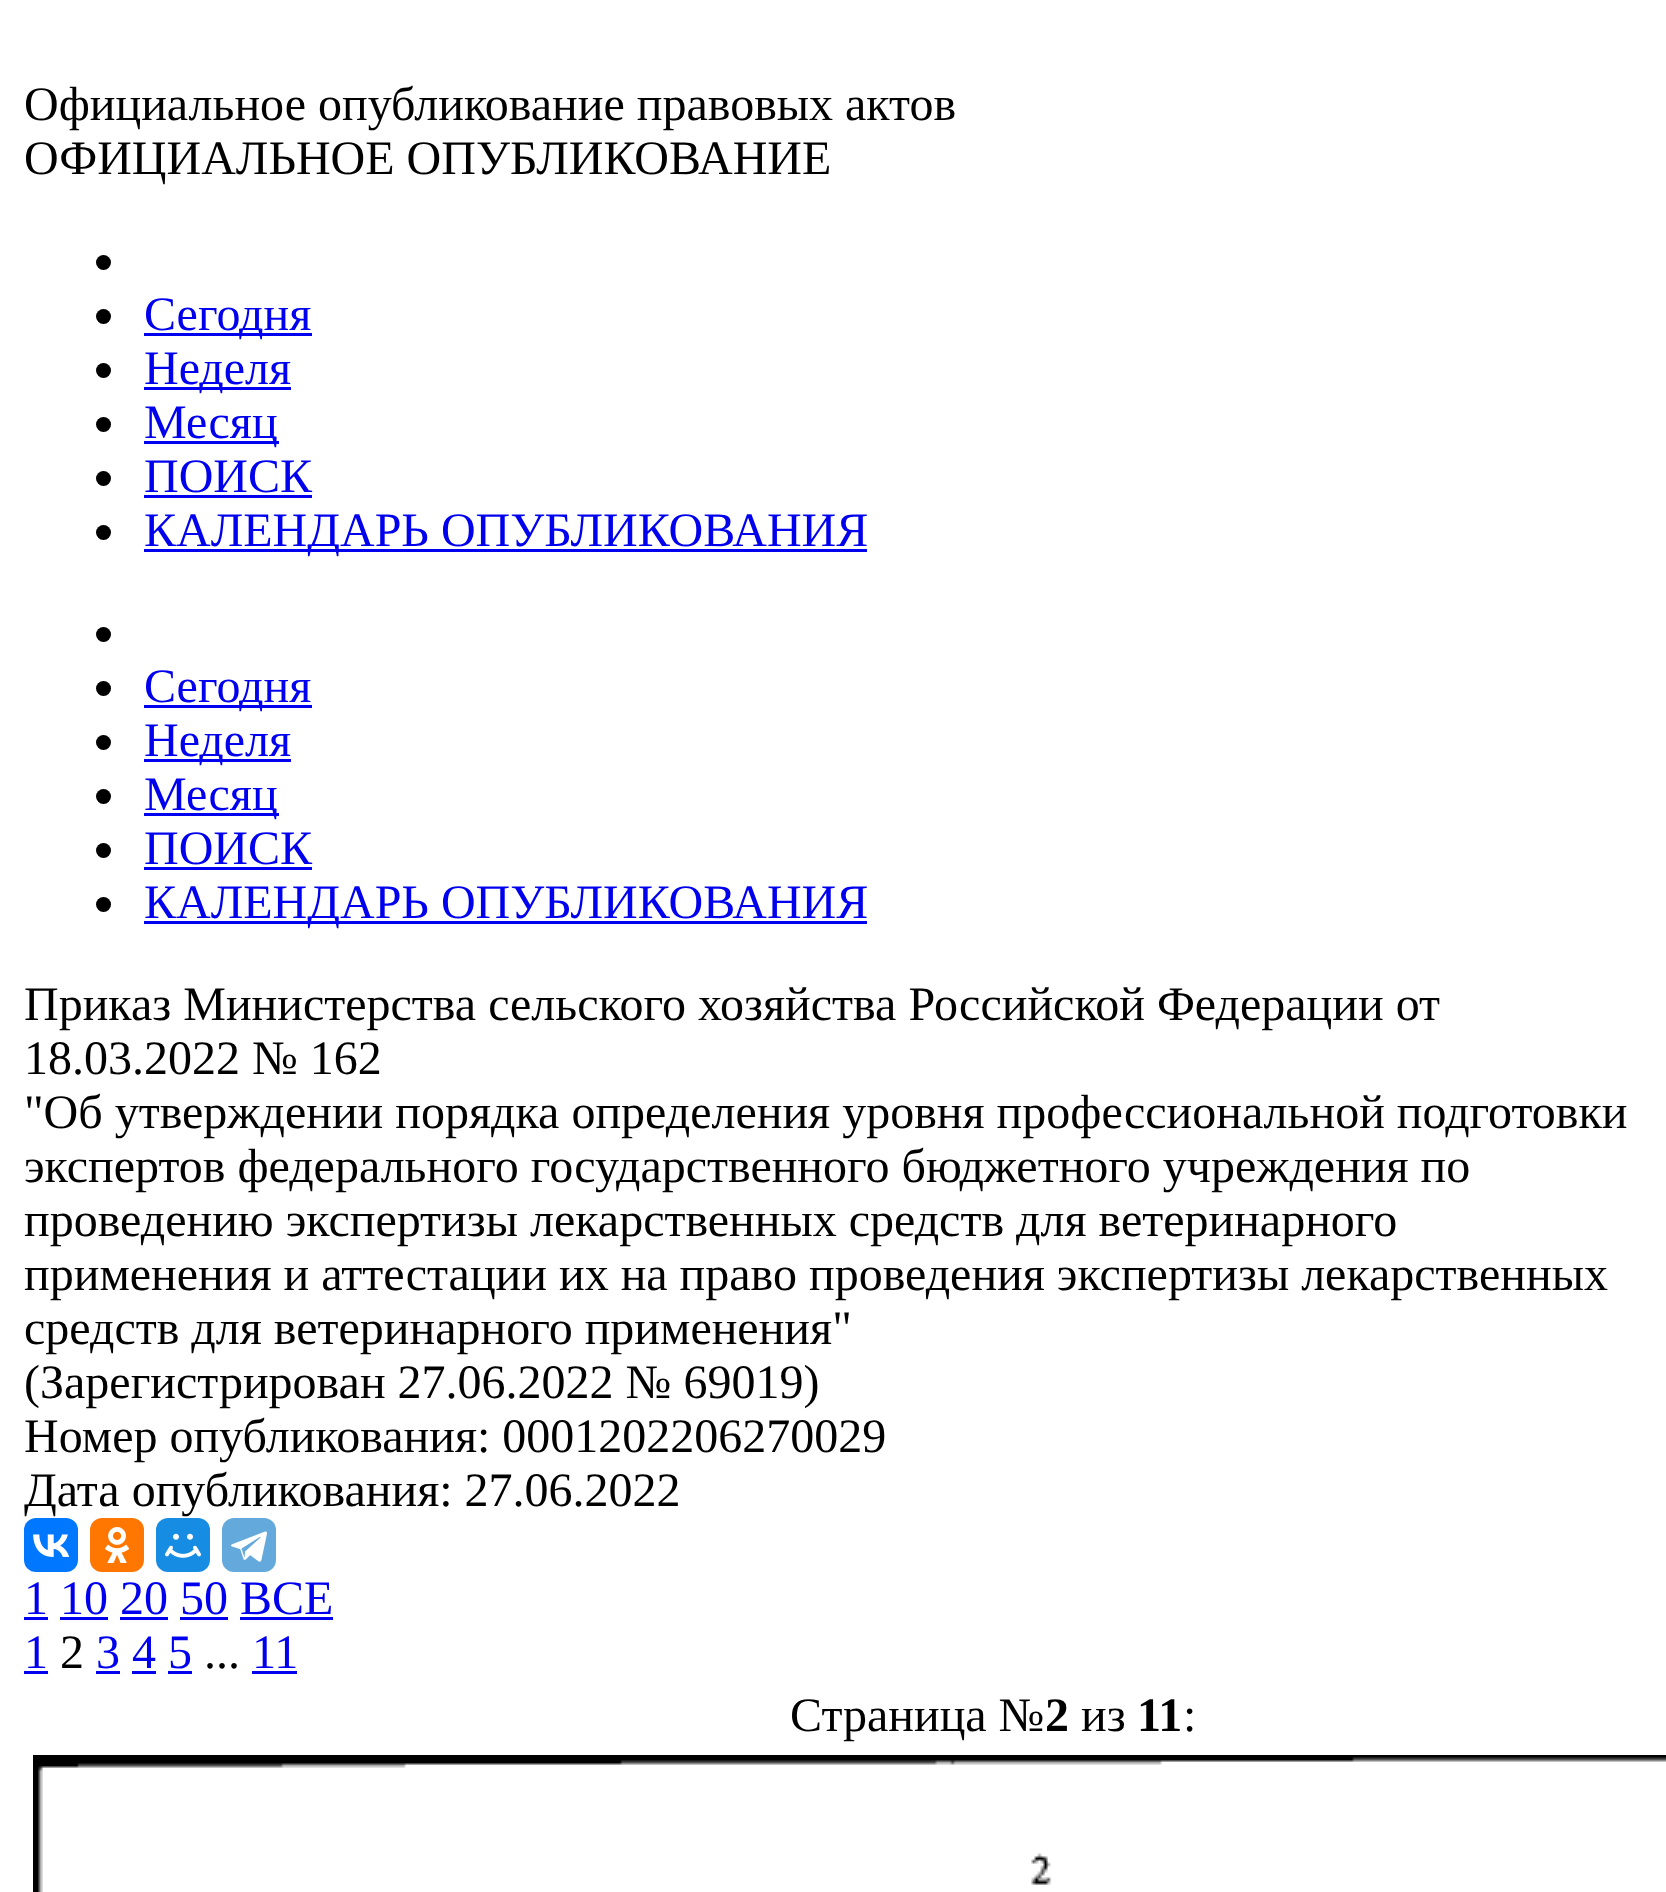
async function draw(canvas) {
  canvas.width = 1666;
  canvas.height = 1892;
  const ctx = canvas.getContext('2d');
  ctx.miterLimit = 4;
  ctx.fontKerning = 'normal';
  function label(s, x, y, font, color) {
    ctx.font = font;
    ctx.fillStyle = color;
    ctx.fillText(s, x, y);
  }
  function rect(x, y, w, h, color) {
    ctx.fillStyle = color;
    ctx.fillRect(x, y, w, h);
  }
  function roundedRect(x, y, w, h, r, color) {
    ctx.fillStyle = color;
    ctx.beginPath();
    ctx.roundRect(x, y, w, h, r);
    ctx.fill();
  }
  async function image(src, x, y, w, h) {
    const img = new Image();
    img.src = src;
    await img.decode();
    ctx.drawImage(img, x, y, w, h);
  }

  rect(0, 0, 1666, 1892, '#fff');
  label('Официальное опубликование правовых актов', 24, 120, '48px Liberation Serif', '#000');
  label('ОФИЦИАЛЬНОЕ ОПУБЛИКОВАНИЕ', 24, 174, '48px Liberation Serif', '#000');
  ctx.beginPath();
  ctx.arc(103.5, 262.5, 7.5, 0, 2 * Math.PI);
  ctx.fill();
  ctx.beginPath();
  ctx.arc(103.5, 316.5, 7.5, 0, 2 * Math.PI);
  ctx.fill();
  rect(144, 333, 168, 3, '#00e');
  label('Сегодня', 144, 330, '48px Liberation Serif', '#00e');
  ctx.fillStyle = '#000';
  ctx.beginPath();
  ctx.arc(103.5, 370.5, 7.5, 0, 2 * Math.PI);
  ctx.fill();
  rect(144, 387, 147, 3, '#00e');
  label('Неделя', 144, 384, '48px Liberation Serif', '#00e');
  ctx.fillStyle = '#000';
  ctx.beginPath();
  ctx.arc(103.5, 424.5, 7.5, 0, 2 * Math.PI);
  ctx.fill();
  rect(144, 441, 135, 3, '#00e');
  label('Месяц', 144, 438, '48px Liberation Serif', '#00e');
  ctx.fillStyle = '#000';
  ctx.beginPath();
  ctx.arc(103.5, 478.5, 7.5, 0, 2 * Math.PI);
  ctx.fill();
  label('ПОИСК', 144, 492, '48px Liberation Serif', '#00e');
  rect(144, 495, 168, 3, '#00e');
  ctx.fillStyle = '#000';
  ctx.beginPath();
  ctx.arc(103.5, 532.5, 7.5, 0, 2 * Math.PI);
  ctx.fill();
  rect(144, 549, 723, 3, '#00e');
  label('КАЛЕНДАРЬ ОПУБЛИКОВАНИЯ', 144, 546, '48px Liberation Serif', '#00e');
  ctx.fillStyle = '#000';
  ctx.beginPath();
  ctx.arc(103.5, 634.5, 7.5, 0, 2 * Math.PI);
  ctx.fill();
  ctx.beginPath();
  ctx.arc(103.5, 688.5, 7.5, 0, 2 * Math.PI);
  ctx.fill();
  rect(144, 705, 168, 3, '#00e');
  label('Сегодня', 144, 702, '48px Liberation Serif', '#00e');
  ctx.fillStyle = '#000';
  ctx.beginPath();
  ctx.arc(103.5, 742.5, 7.5, 0, 2 * Math.PI);
  ctx.fill();
  rect(144, 759, 147, 3, '#00e');
  label('Неделя', 144, 756, '48px Liberation Serif', '#00e');
  ctx.fillStyle = '#000';
  ctx.beginPath();
  ctx.arc(103.5, 796.5, 7.5, 0, 2 * Math.PI);
  ctx.fill();
  rect(144, 813, 135, 3, '#00e');
  label('Месяц', 144, 810, '48px Liberation Serif', '#00e');
  ctx.fillStyle = '#000';
  ctx.beginPath();
  ctx.arc(103.5, 850.5, 7.5, 0, 2 * Math.PI);
  ctx.fill();
  label('ПОИСК', 144, 864, '48px Liberation Serif', '#00e');
  rect(144, 867, 168, 3, '#00e');
  ctx.fillStyle = '#000';
  ctx.beginPath();
  ctx.arc(103.5, 904.5, 7.5, 0, 2 * Math.PI);
  ctx.fill();
  rect(144, 921, 723, 3, '#00e');
  label('КАЛЕНДАРЬ ОПУБЛИКОВАНИЯ', 144, 918, '48px Liberation Serif', '#00e');
  label('Приказ Министерства сельского хозяйства Российской Федерации от', 24, 1020, '48px Liberation Serif', '#000');
  label('18.03.2022 № 162', 24, 1074, '48px Liberation Serif', '#000');
  label('"Об утверждении порядка определения уровня профессиональной подготовки', 24, 1128, '48px Liberation Serif', '#000');
  label('экспертов федерального государственного бюджетного учреждения по', 24, 1182, '48px Liberation Serif', '#000');
  label('проведению экспертизы лекарственных средств для ветеринарного', 24, 1236, '48px Liberation Serif', '#000');
  label('применения и аттестации их на право проведения экспертизы лекарственных', 24, 1290, '48px Liberation Serif', '#000');
  label('средств для ветеринарного применения"', 24, 1344, '48px Liberation Serif', '#000');
  label('(Зарегистрирован 27.06.2022 № 69019)', 24, 1398, '48px Liberation Serif', '#000');
  label('Номер опубликования: 0001202206270029', 24, 1452, '48px Liberation Serif', '#000');
  label('Дата опубликования: 27.06.2022', 24, 1506, '48px Liberation Serif', '#000');
  roundedRect(24, 1518, 54, 54, 12, '#07f');
  await image('assets/img1.png', 33, 1534, 37, 23);
  roundedRect(90, 1518, 54, 54, 12, '#f70');
  await image('assets/img2.png', 105, 1527, 25, 36);
  roundedRect(156, 1518, 54, 54, 12, '#168de2');
  await image('assets/img3.png', 165, 1533, 36, 25);
  roundedRect(222, 1518, 54, 54, 12, '#64a9dc');
  await image('assets/img4.png', 231, 1531, 36, 31);
  label('1 10 20 50 ВСЕ', 24, 1614, '48px Liberation Serif', '#00e');
  rect(24, 1617, 24, 3, '#00e');
  rect(60, 1617, 48, 3, '#00e');
  rect(120, 1617, 48, 3, '#00e');
  rect(180, 1617, 48, 3, '#00e');
  rect(240, 1617, 93, 3, '#00e');
  label('1', 24, 1668, '48px Liberation Serif', '#00e');
  rect(24, 1671, 24, 3, '#00e');
  label('2', 60, 1668, '48px Liberation Serif', '#000');
  label('3 4 5', 96, 1668, '48px Liberation Serif', '#00e');
  rect(96, 1671, 24, 3, '#00e');
  label('...', 204, 1668, '48px Liberation Serif', '#000');
  label('11', 252, 1668, '48px Liberation Serif', '#00e');
  rect(252, 1671, 45, 3, '#00e');
  rect(132, 1671, 24, 3, '#00e');
  rect(168, 1671, 24, 3, '#00e');
  label('Страница №', 790, 1731, '48px Liberation Serif', '#000');
  label('2', 1045, 1731, 'bold 48px Liberation Serif', '#000');
  label('из', 1081, 1731, '48px Liberation Serif', '#000');
  label('11', 1137, 1731, 'bold 48px Liberation Serif', '#000');
  label(':', 1183, 1731, '48px Liberation Serif', '#000');
  await image('assets/img5.png', 33, 1755, 1633, 137);
}

draw(document.querySelector('canvas'));
